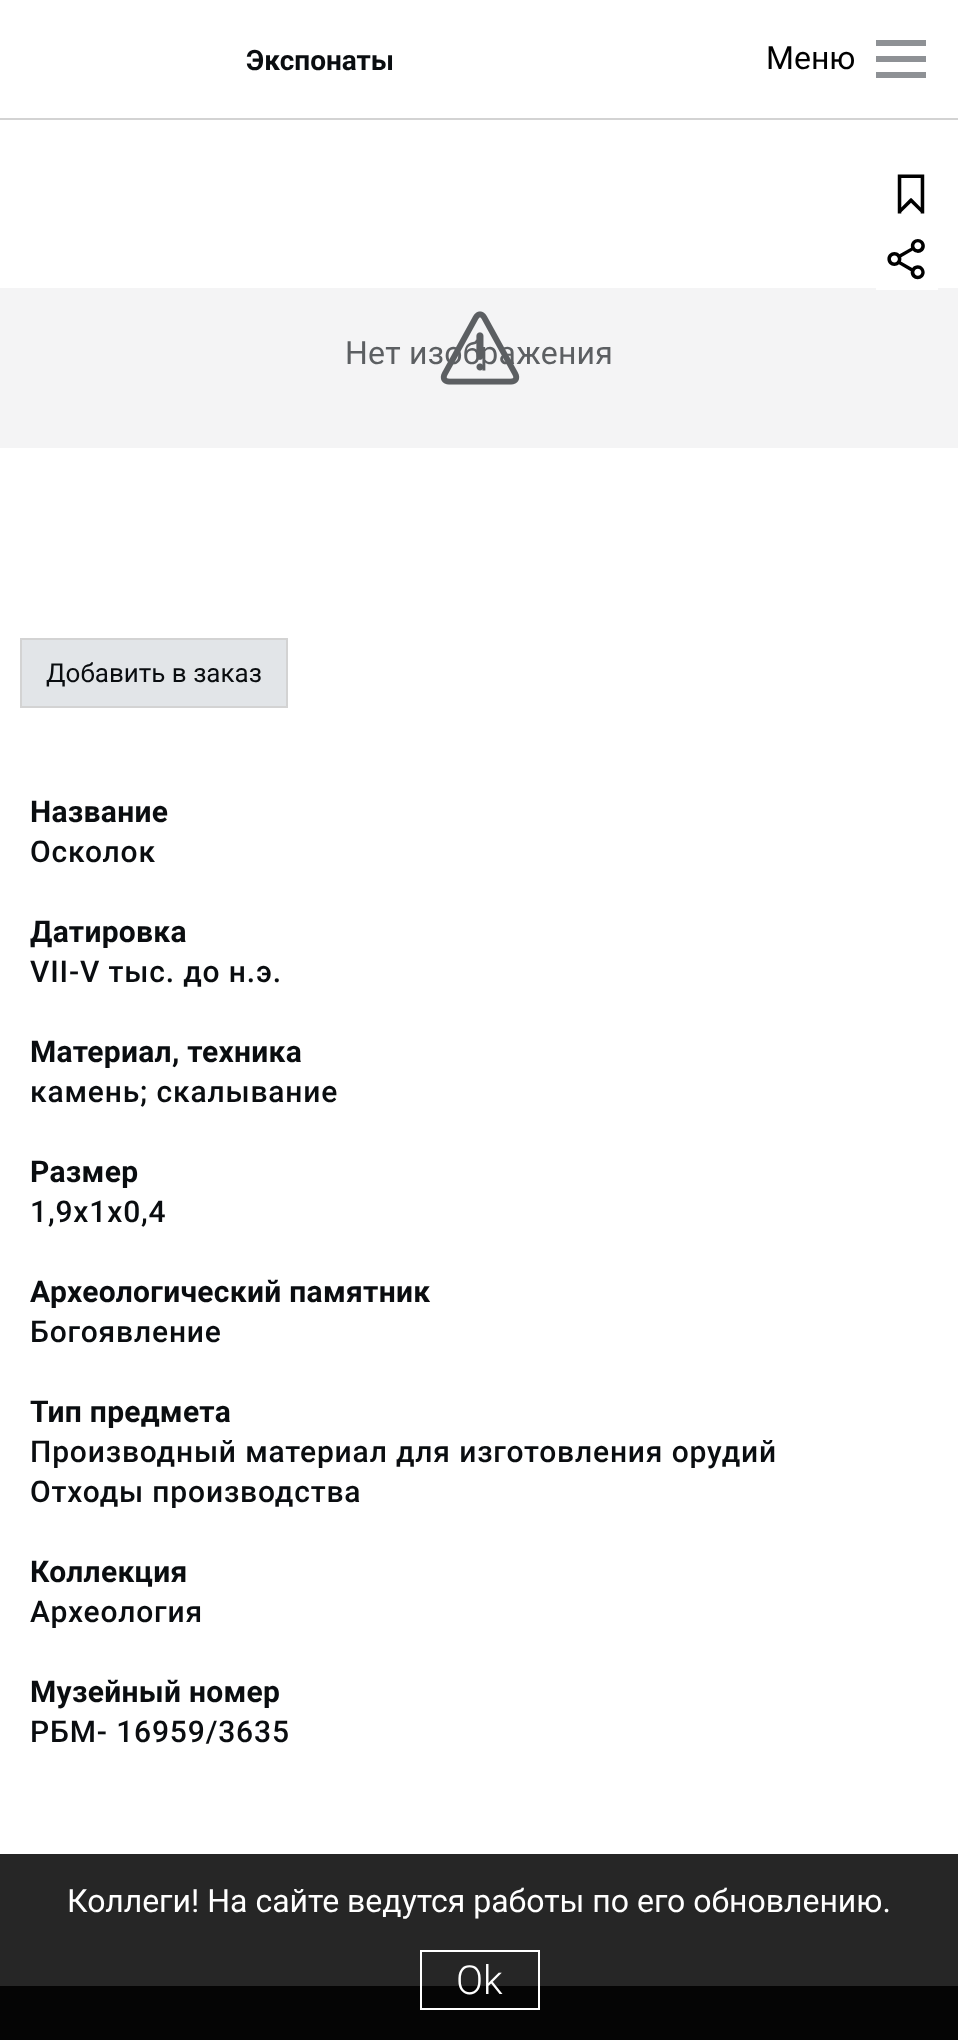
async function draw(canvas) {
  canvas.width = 958;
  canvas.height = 2040;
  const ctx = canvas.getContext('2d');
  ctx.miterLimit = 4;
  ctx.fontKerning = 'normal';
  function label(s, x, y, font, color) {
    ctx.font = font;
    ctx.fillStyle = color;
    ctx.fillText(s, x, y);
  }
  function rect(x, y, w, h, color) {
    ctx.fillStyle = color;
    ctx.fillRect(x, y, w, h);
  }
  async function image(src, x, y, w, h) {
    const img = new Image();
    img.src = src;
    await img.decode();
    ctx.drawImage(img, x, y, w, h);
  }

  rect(0, 0, 958, 2040, '#fff');
  rect(0, 1854, 958, 132, '#262626');
  rect(0, 118, 958, 2, '#d3d3d3');
  label('Экспонаты', 246, 70, 'bold 28px Roboto', '#0a0d10');
  rect(876, 40, 50, 6, '#8e9195');
  label('Меню', 766, 69, '32px Roboto', '#000');
  rect(876, 56, 50, 6, '#8e9195');
  rect(876, 72, 50, 6, '#8e9195');
  rect(0, 288, 958, 160, '#f4f4f5');
  ctx.letterSpacing = '0.25px';
  label('Нет изображения', 345, 364, '32px Roboto', '#5c5f62');
  await image('assets/img1.png', 440, 311, 80, 74);
  ctx.fillStyle = '#e2e5e8';
  ctx.beginPath();
  ctx.rect(21, 639, 266, 68);
  ctx.fill();
  ctx.strokeStyle = '#d3d3d3';
  ctx.lineWidth = 2;
  ctx.stroke();
  ctx.letterSpacing = '0px';
  label('Добавить в заказ', 46, 682, '26px Roboto', '#0a0d10');
  rect(876, 288, 62, 2, '#fff');
  await image('assets/img2.png', 897, 174, 28, 40);
  await image('assets/img3.png', 887, 239, 38, 41);
  ctx.letterSpacing = '0.3px';
  label('Название', 30, 822, 'bold 30px Roboto', '#0a0d10');
  ctx.letterSpacing = '0.85px';
  label('Осколок', 30, 862, '500 30px Roboto', '#0a0d10');
  ctx.letterSpacing = '0.3px';
  label('Датировка', 30, 942, 'bold 30px Roboto', '#0a0d10');
  ctx.letterSpacing = '0.85px';
  label('VII-V тыс. до н.э.', 30, 982, '500 30px Roboto', '#0a0d10');
  ctx.letterSpacing = '0.3px';
  label('Материал, техника', 30, 1062, 'bold 30px Roboto', '#0a0d10');
  ctx.letterSpacing = '0.85px';
  label('камень; скалывание', 30, 1102, '500 30px Roboto', '#0a0d10');
  ctx.letterSpacing = '0.3px';
  label('Размер', 30, 1182, 'bold 30px Roboto', '#0a0d10');
  ctx.letterSpacing = '0.85px';
  label('1,9х1х0,4', 30, 1222, '500 30px Roboto', '#0a0d10');
  ctx.letterSpacing = '0.3px';
  label('Археологический памятник', 30, 1302, 'bold 30px Roboto', '#0a0d10');
  ctx.letterSpacing = '0.85px';
  label('Богоявление', 30, 1342, '500 30px Roboto', '#0a0d10');
  ctx.letterSpacing = '0.3px';
  label('Тип предмета', 30, 1422, 'bold 30px Roboto', '#0a0d10');
  ctx.letterSpacing = '0.85px';
  label('Производный материал для изготовления орудий', 30, 1462, '500 30px Roboto', '#0a0d10');
  label('Отходы производства', 30, 1502, '500 30px Roboto', '#0a0d10');
  ctx.letterSpacing = '0.3px';
  label('Коллекция', 30, 1582, 'bold 30px Roboto', '#0a0d10');
  ctx.letterSpacing = '0.85px';
  label('Археология', 30, 1622, '500 30px Roboto', '#0a0d10');
  ctx.letterSpacing = '0.3px';
  label('Музейный номер', 30, 1702, 'bold 30px Roboto', '#0a0d10');
  ctx.letterSpacing = '0.85px';
  label('РБМ- 16959/3635', 30, 1742, '500 30px Roboto', '#0a0d10');
  ctx.letterSpacing = '0px';
  label('Коллеги! На сайте ведутся работы по его обновлению.', 67, 1912, '32px Roboto', '#fff');
  rect(0, 1986, 958, 54, '#050505');
  ctx.strokeStyle = '#fff';
  ctx.strokeRect(421, 1951, 118, 58);
  label('Ok', 456, 1994, '300 40px Roboto', '#fff');
}

draw(document.querySelector('canvas'));
